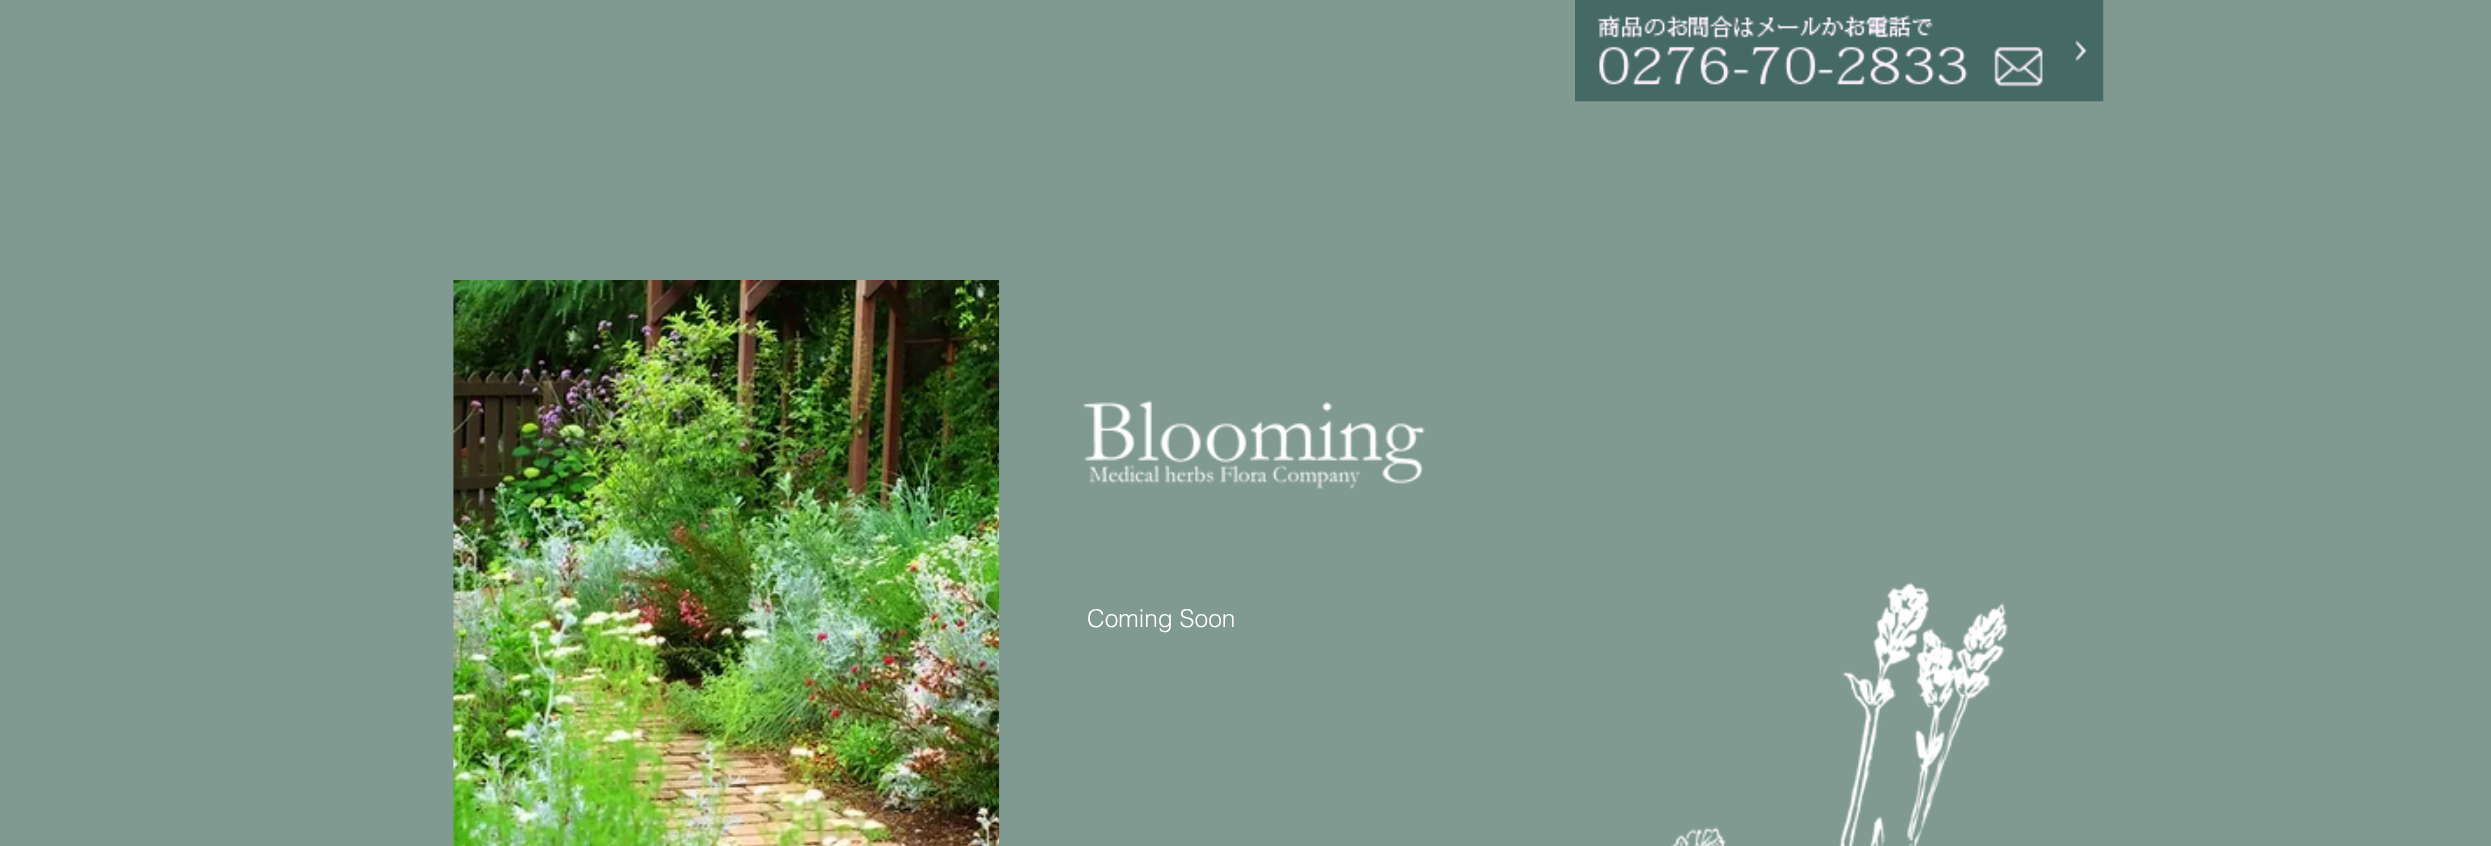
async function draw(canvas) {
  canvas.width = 2491;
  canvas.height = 846;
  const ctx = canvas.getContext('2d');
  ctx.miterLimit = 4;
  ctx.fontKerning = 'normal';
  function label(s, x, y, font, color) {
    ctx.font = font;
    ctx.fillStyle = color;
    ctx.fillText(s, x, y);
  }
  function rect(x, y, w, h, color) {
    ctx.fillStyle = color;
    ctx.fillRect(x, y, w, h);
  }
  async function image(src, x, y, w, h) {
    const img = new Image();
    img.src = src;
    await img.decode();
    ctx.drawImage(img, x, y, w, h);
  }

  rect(0, 0, 2491, 846, '#809a91');
  await image('assets/img1.png', 1575, 0, 529, 102);
  await image('assets/img2.png', 453, 280, 547, 566);
  await image('assets/img3.png', 1083, 400, 342, 89);
  label('Coming Soon', 1087, 627, '300 24.5px helvetica', '#fff');
  await image('assets/img4.png', 1671, 582, 337, 264);
}

draw(document.querySelector('canvas'));
